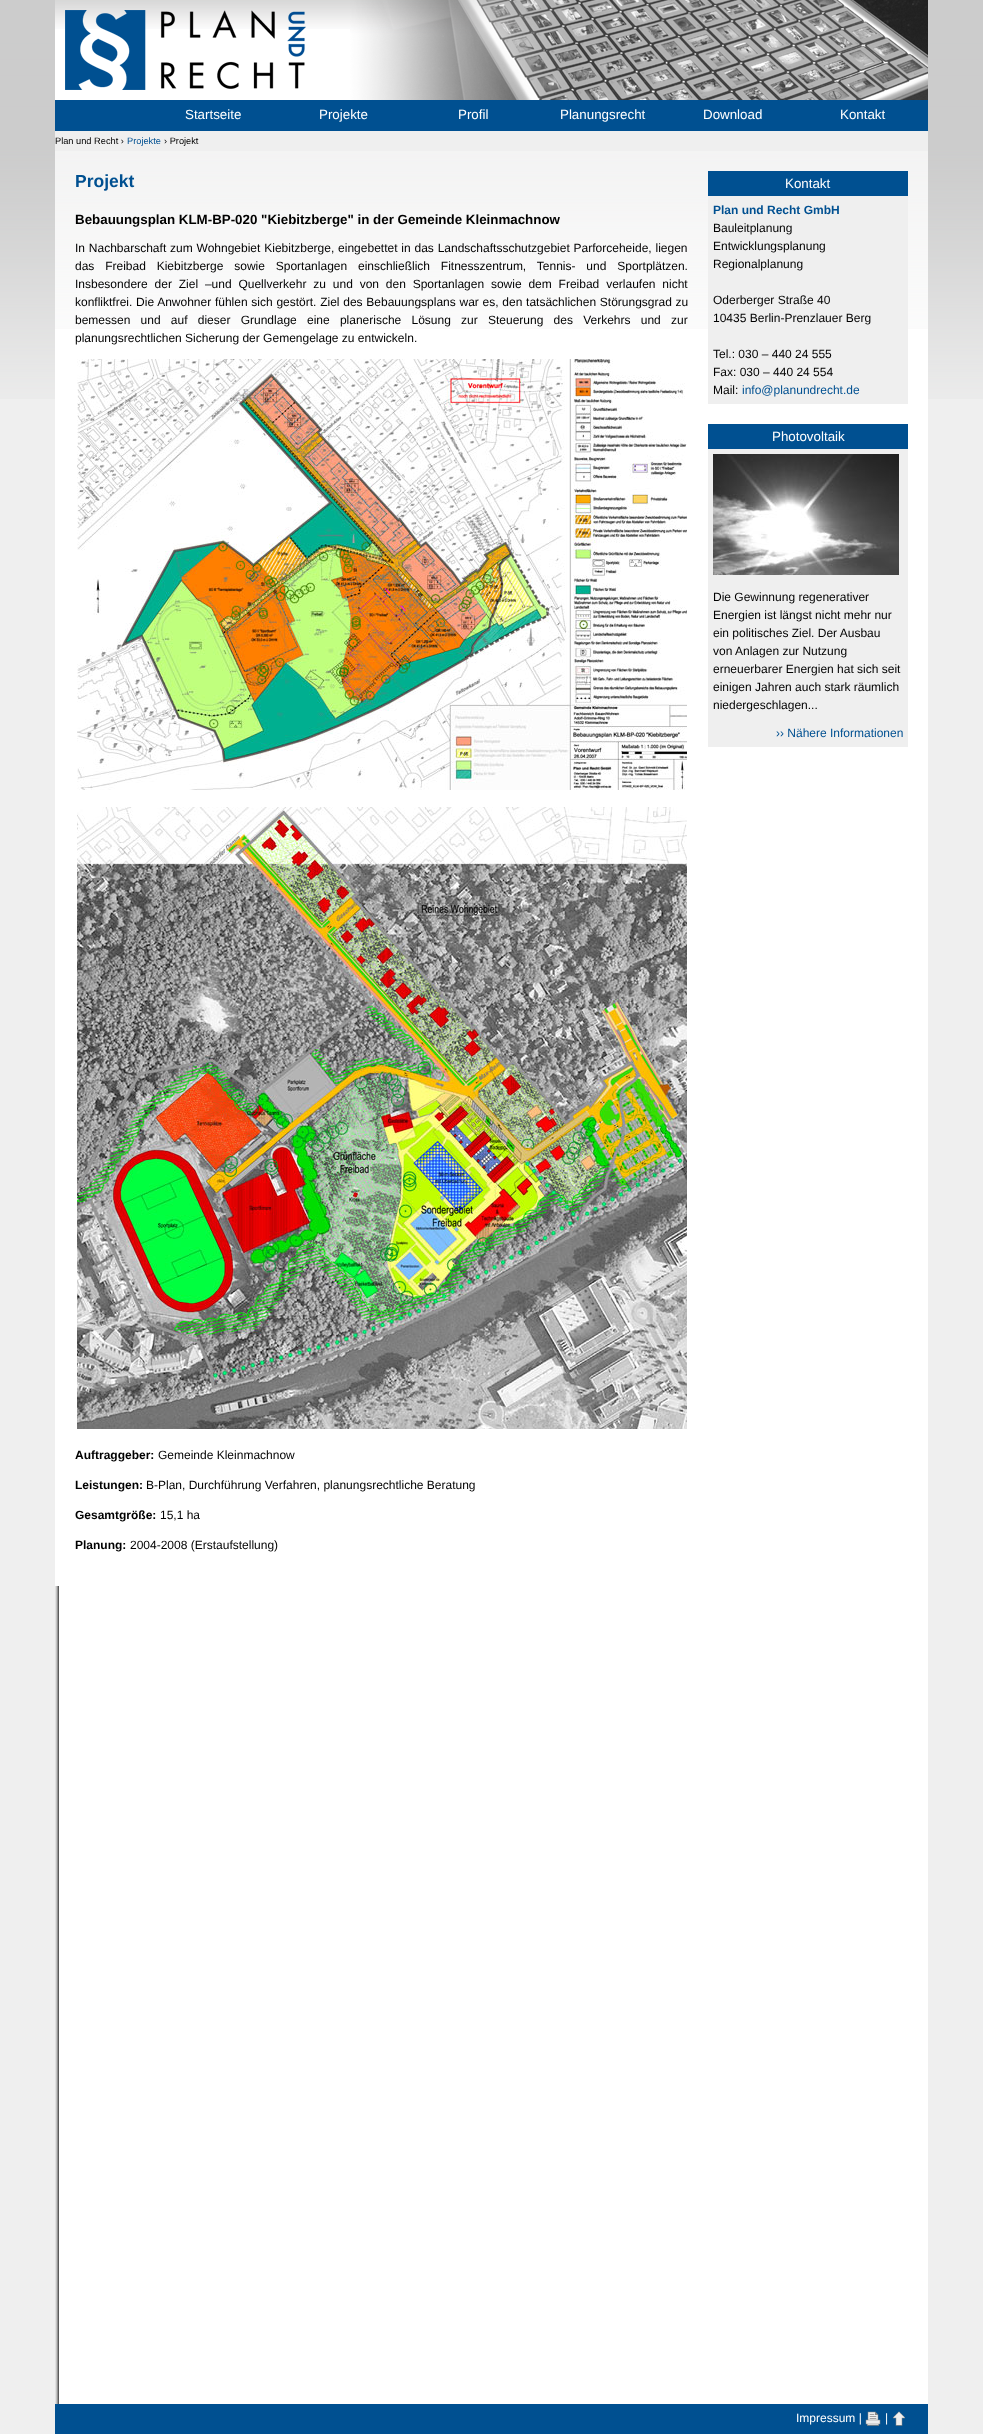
async function draw(canvas) {
  canvas.width = 983;
  canvas.height = 2434;
  const ctx = canvas.getContext('2d');
  ctx.miterLimit = 4;
  ctx.fontKerning = 'normal';
  function label(s, x, y, font, color) {
    ctx.font = font;
    ctx.fillStyle = color;
    ctx.fillText(s, x, y);
  }
  function rect(x, y, w, h, color) {
    ctx.fillStyle = color;
    ctx.fillRect(x, y, w, h);
  }
  async function image(src, x, y, w, h) {
    const img = new Image();
    img.src = src;
    await img.decode();
    ctx.drawImage(img, x, y, w, h);
  }

  rect(0, 0, 983, 2434, '#efefef');
  await image('assets/img1.png', 0, 0, 983, 399);
  await image('assets/img2.png', 55, 1586, 873, 818);
  rect(55, 29, 295, 71, '#fff');
  await image('assets/img3.png', 55, 0, 295, 29);
  await image('assets/img4.png', 65, 10, 241, 80);
  await image('assets/img5.png', 350, 0, 578, 100);
  rect(55, 100, 873, 31, '#005091');
  label('Startseite', 185, 119, '13.35px Liberation Sans', '#fff');
  label('Projekte', 319, 119, '13.35px Liberation Sans', '#fff');
  label('Profil', 458, 119, '13.35px Liberation Sans', '#fff');
  label('Planungsrecht', 560, 119, '13.35px Liberation Sans', '#fff');
  label('Download', 703, 119, '13.35px Liberation Sans', '#fff');
  label('Kontakt', 840, 119, '13.35px Liberation Sans', '#fff');
  rect(55, 131, 873, 20, '#efefef');
  label('Plan und Recht ›', 55, 144, '9.25px Liberation Sans', '#000');
  label('Projekte', 127, 144, '9.25px Liberation Sans', '#005091');
  label('› Projekt', 164, 144, '9.25px Liberation Sans', '#000');
  rect(55, 329, 873, 1257, '#fff');
  await image('assets/img6.png', 55, 151, 873, 178);
  label('Projekt', 75, 187, 'bold 17.5px Liberation Sans', '#005091');
  label('Bebauungsplan KLM-BP-020 "Kiebitzberge" in der Gemeinde Kleinmachnow', 75, 224, 'bold 13.35px Liberation Sans', '#000');
  ctx.wordSpacing = '0.5px';
  label('In Nachbarschaft zum Wohngebiet Kiebitzberge, eingebettet in das Landschaftsschutzgebiet Parforceheide, liegen', 75, 252, '12px Liberation Sans', '#000');
  ctx.wordSpacing = '7.5px';
  label('das Freibad Kiebitzberge sowie Sportanlagen einschließlich Fitnesszentrum, Tennis- und Sportplätzen.', 75, 270, '12px Liberation Sans', '#000');
  ctx.wordSpacing = '3.5px';
  label('Insbesondere der Ziel –und Quellverkehr zu und von den Sportanlagen sowie dem Freibad verlaufen nicht', 75, 288, '12px Liberation Sans', '#000');
  ctx.wordSpacing = '0.4px';
  label('konfliktfrei. Die Anwohner fühlen sich gestört. Ziel des Bebauungsplans war es, den tatsächlichen Störungsgrad zu', 75, 306, '12px Liberation Sans', '#000');
  ctx.wordSpacing = '6.9px';
  label('bemessen und auf dieser Grundlage eine planerische Lösung zur Steuerung des Verkehrs und zur', 75, 324, '12px Liberation Sans', '#000');
  ctx.wordSpacing = '0px';
  label('planungsrechtlichen Sicherung der Gemengelage zu entwickeln.', 75, 342, '12px Liberation Sans', '#000');
  await image('assets/img7.png', 77, 359, 610, 431);
  await image('assets/img8.png', 77, 807, 610, 622);
  label('Auftraggeber:', 75, 1459, 'bold 12px Liberation Sans', '#000');
  label('Gemeinde Kleinmachnow', 158, 1459, '12px Liberation Sans', '#000');
  label('Leistungen:', 75, 1489, 'bold 12px Liberation Sans', '#000');
  label('B-Plan, Durchführung Verfahren, planungsrechtliche Beratung', 146, 1489, '12px Liberation Sans', '#000');
  label('Gesamtgröße:', 75, 1519, 'bold 12px Liberation Sans', '#000');
  label('15,1 ha', 160, 1519, '12px Liberation Sans', '#000');
  label('Planung:', 75, 1549, 'bold 12px Liberation Sans', '#000');
  label('2004-2008 (Erstaufstellung)', 130, 1549, '12px Liberation Sans', '#000');
  rect(708, 196, 200, 208, '#efefef');
  rect(708, 171, 200, 25, '#005091');
  label('Kontakt', 785, 188, '13.35px Liberation Sans', '#fff');
  label('Plan und Recht GmbH', 713, 214, 'bold 12px Liberation Sans', '#005091');
  label('Bauleitplanung', 713, 232, '12px Liberation Sans', '#000');
  label('Entwicklungsplanung', 713, 250, '12px Liberation Sans', '#000');
  label('Regionalplanung', 713, 268, '12px Liberation Sans', '#000');
  label('Oderberger Straße 40', 713, 304, '12px Liberation Sans', '#000');
  label('10435 Berlin-Prenzlauer Berg', 713, 322, '12px Liberation Sans', '#000');
  label('Tel.: 030 – 440 24 555', 713, 358, '12px Liberation Sans', '#000');
  label('Fax: 030 – 440 24 554', 713, 376, '12px Liberation Sans', '#000');
  label('Mail:', 713, 394, '12px Liberation Sans', '#000');
  label('info@planundrecht.de', 742, 394, '12px Liberation Sans', '#005091');
  rect(708, 449, 200, 298, '#efefef');
  rect(708, 424, 200, 25, '#005091');
  label('Photovoltaik', 772, 441, '13.35px Liberation Sans', '#fff');
  await image('assets/img9.png', 713, 454, 186, 121);
  label('Die Gewinnung regenerativer', 713, 601, '12px Liberation Sans', '#000');
  label('Energien ist längst nicht mehr nur', 713, 619, '12px Liberation Sans', '#000');
  label('ein politisches Ziel. Der Ausbau', 713, 637, '12px Liberation Sans', '#000');
  label('von Anlagen zur Nutzung', 713, 655, '12px Liberation Sans', '#000');
  label('erneuerbarer Energien hat sich seit', 713, 673, '12px Liberation Sans', '#000');
  label('einigen Jahren auch stark räumlich', 713, 691, '12px Liberation Sans', '#000');
  label('niedergeschlagen...', 713, 709, '12px Liberation Sans', '#000');
  label('›› Nähere Informationen', 776, 737, '12px Liberation Sans', '#005091');
  rect(55, 2404, 873, 30, '#005091');
  label('Impressum |', 796, 2422, '12px Liberation Sans', '#fff');
  await image('assets/img10.png', 865, 2411, 16, 15);
  label('|', 885, 2422, '12px Liberation Sans', '#fff');
  await image('assets/img11.png', 893, 2411, 12, 15);
}

draw(document.querySelector('canvas'));
